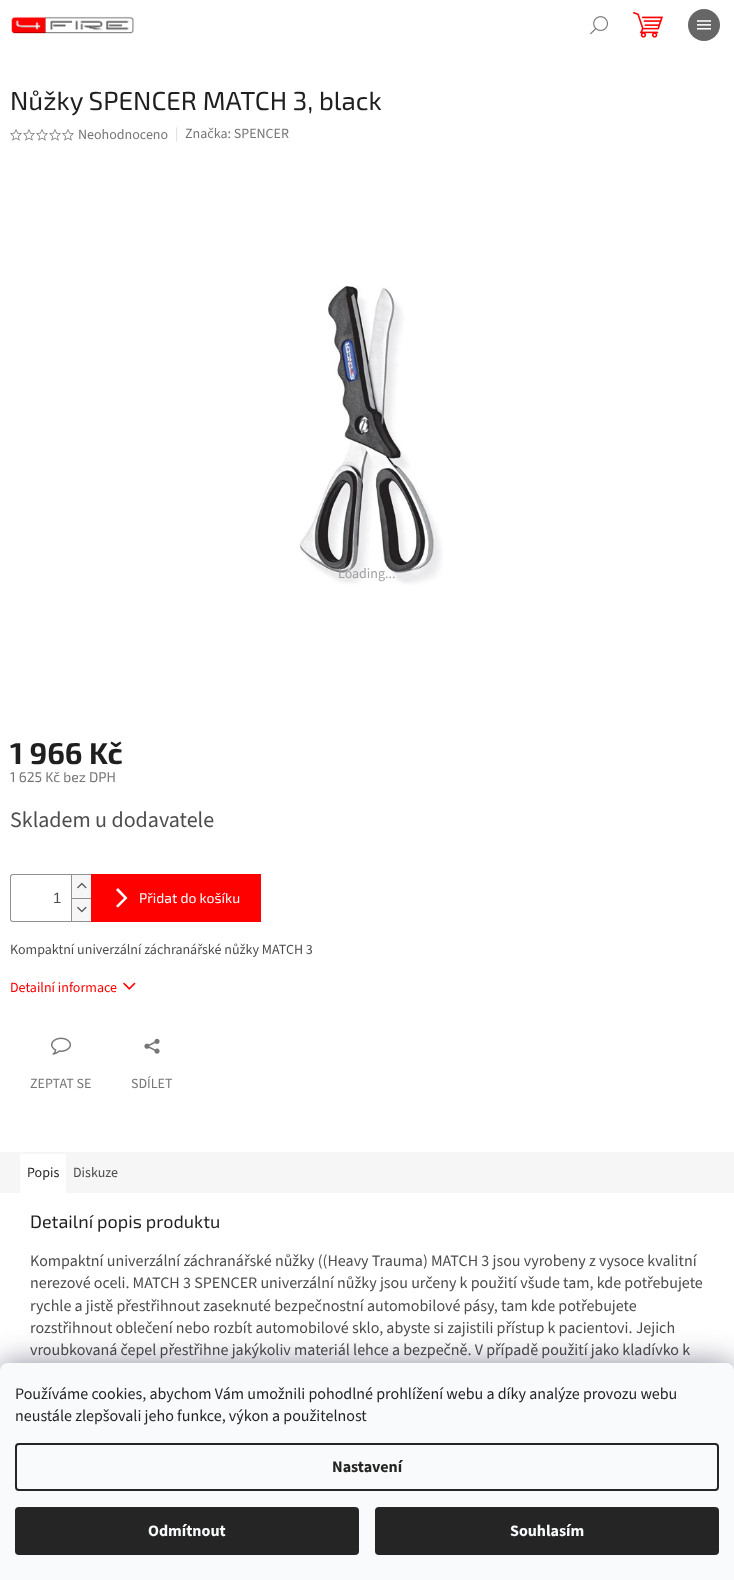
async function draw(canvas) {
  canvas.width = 734;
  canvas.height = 1580;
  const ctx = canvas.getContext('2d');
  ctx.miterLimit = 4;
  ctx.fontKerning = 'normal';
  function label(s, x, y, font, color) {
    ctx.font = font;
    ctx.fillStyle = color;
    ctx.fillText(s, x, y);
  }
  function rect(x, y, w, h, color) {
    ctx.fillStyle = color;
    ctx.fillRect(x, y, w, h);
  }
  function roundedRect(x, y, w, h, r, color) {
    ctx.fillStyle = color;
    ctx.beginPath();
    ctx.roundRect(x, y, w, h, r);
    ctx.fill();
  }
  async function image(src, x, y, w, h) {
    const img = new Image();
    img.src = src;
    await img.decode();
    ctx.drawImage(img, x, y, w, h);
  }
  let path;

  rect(0, 0, 734, 1580, '#fff');
  await image('assets/img1.png', 590, 16, 18, 19);
  ctx.fillStyle = '#666';
  ctx.beginPath();
  ctx.arc(704, 25, 16, 0, 2 * Math.PI);
  ctx.fill();
  await image('assets/img2.png', 697, 20, 14, 10);
  await image('assets/img3.png', 11, 16, 123, 18);
  await image('assets/img4.png', 633, 12, 30, 26);
  label('Nůžky SPENCER MATCH 3, black', 10, 110, '26px "Exo 2"', '#1f1f1f');
  await image('assets/img5.png', 10, 129, 12, 12);
  await image('assets/img5.png', 23, 129, 12, 12);
  await image('assets/img5.png', 36, 129, 12, 12);
  await image('assets/img5.png', 49, 129, 12, 12);
  await image('assets/img5.png', 62, 129, 12, 12);
  label('Neohodnoceno', 78, 139, '14px "Source Sans 3"', '#767676');
  label('|', 175, 138, '14px "Source Sans 3"', '#dadada');
  label('Značka: SPENCER', 185, 138, '14px "Source Sans 3"', '#767676');
  await image('assets/img6.png', 299, 286, 144, 299);
  label('Loading...', 338, 578, '14px "Source Sans 3"', '#9f9fa0');
  label('1 966 Kč', 10, 764, 'bold 30px "Exo 2"', '#1f1f1f');
  label('1 625 Kč bez DPH', 10, 782, '14px "Exo 2"', '#767676');
  label('Skladem u dodavatele', 10, 827, '22px "Source Sans 3"', '#4d4d4d');
  ctx.fillStyle = '#919191';
  path = new Path2D('M13 874H91V922H13C11 922 10 921 10 919V877C10 875 11 874 13 874ZM13 875H91V921H13C12 921 11 920 11 919V877C11 876 12 875 13 875Z');
  ctx.fill(path, 'evenodd');
  label('1', 53, 903, '15px Liberation Sans', '#4d4d4d');
  rect(72, 875, 19, 23, '#f6f6f6');
  rect(71, 875, 1, 23, '#919191');
  await image('assets/img7.png', 77, 882, 10, 7);
  rect(72, 899, 19, 22, '#f6f6f6');
  rect(71, 898, 20, 1, '#919191');
  rect(71, 898, 1, 23, '#919191');
  await image('assets/img8.png', 77, 906, 10, 7);
  rect(91, 874, 170, 48, '#fe0000');
  ctx.fillStyle = '#fff';
  path = new Path2D('M118 907.5L116 906L124 898L116 890L118 888L127.5 898Z');
  ctx.fill(path);
  label('Přidat do košíku', 139, 903, '14px "Exo 2"', '#fff');
  label('Kompaktní univerzální záchranářské nůžky MATCH 3', 10, 954, '14px "Source Sans 3"', '#4d4d4d');
  label('Detailní informace', 10, 992, '14px "Source Sans 3"', '#fe0000');
  await image('assets/img9.png', 123, 982, 13, 8);
  await image('assets/img10.png', 51, 1037, 20, 18);
  label('ZEPTAT SE', 30, 1088, '14px "Source Sans 3"', '#767676');
  await image('assets/img11.png', 144, 1038, 16, 16);
  label('SDÍLET', 131, 1088, '14px "Source Sans 3"', '#767676');
  rect(0, 1152, 734, 41, '#f6f6f6');
  rect(20, 1154, 46, 39, '#fff');
  label('Popis', 27, 1177, '14px "Source Sans 3"', '#1f1f1f');
  label('Diskuze', 73, 1177, '14px "Source Sans 3"', '#4d4d4d');
  label('Detailní popis produktu', 30, 1228, '18px "Exo 2"', '#1f1f1f');
  label('Kompaktní univerzální záchranářské nůžky ((Heavy Trauma) MATCH 3 jsou vyrobeny z vysoce kvalitní', 30, 1266, '16px "Source Sans 3"', '#4d4d4d');
  label('nerezové oceli. MATCH 3 SPENCER univerzální nůžky jsou určeny k použití všude tam, kde potřebujete', 30, 1288, '16px "Source Sans 3"', '#4d4d4d');
  label('rychle a jistě přestřihnout zaseknuté bezpečnostní automobilové pásy, tam kde potřebujete', 30, 1311, '16px "Source Sans 3"', '#4d4d4d');
  label('rozstřihnout oblečení nebo rozbít automobilové sklo, abyste si zajistili přístup k pacientovi. Jejich', 30, 1333, '16px "Source Sans 3"', '#4d4d4d');
  label('vroubkovaná čepel přestřihne jakýkoliv materiál lehce a bezpečně. V případě použití jako kladívko k', 30, 1355, '16px "Source Sans 3"', '#4d4d4d');
  ctx.fillStyle = '#1b193980';
  ctx.filter = 'blur(15px)';
  ctx.beginPath();
  ctx.roundRect(0, 1363, 734, 217, 8);
  ctx.fill();
  ctx.filter = 'none';
  ctx.fillStyle = '#f8fafb';
  ctx.beginPath();
  ctx.roundRect(0, 1363, 734, 217, [8, 8, 0, 0]);
  ctx.fill();
  label('Používáme cookies, abychom Vám umožnili pohodlné prohlížení webu a díky analýze provozu webu', 15, 1399, '16px "Source Sans 3"', '#252525');
  label('neustále zlepšovali jeho funkce, výkon a použitelnost', 15, 1421, '16px "Source Sans 3"', '#252525');
  ctx.beginPath();
  ctx.roundRect(16, 1444, 702, 46, 3);
  ctx.strokeStyle = '#252525';
  ctx.lineWidth = 2;
  ctx.stroke();
  label('Nastavení', 332, 1472, 'bold 16px "Source Sans 3"', '#252525');
  roundedRect(15, 1507, 344, 48, 4, '#252525');
  label('Odmítnout', 148, 1536, 'bold 16px "Source Sans 3"', '#f8fafb');
  roundedRect(375, 1507, 344, 48, 4, '#252525');
  label('Souhlasím', 510, 1536, 'bold 16px "Source Sans 3"', '#f8fafb');
}

draw(document.querySelector('canvas'));
